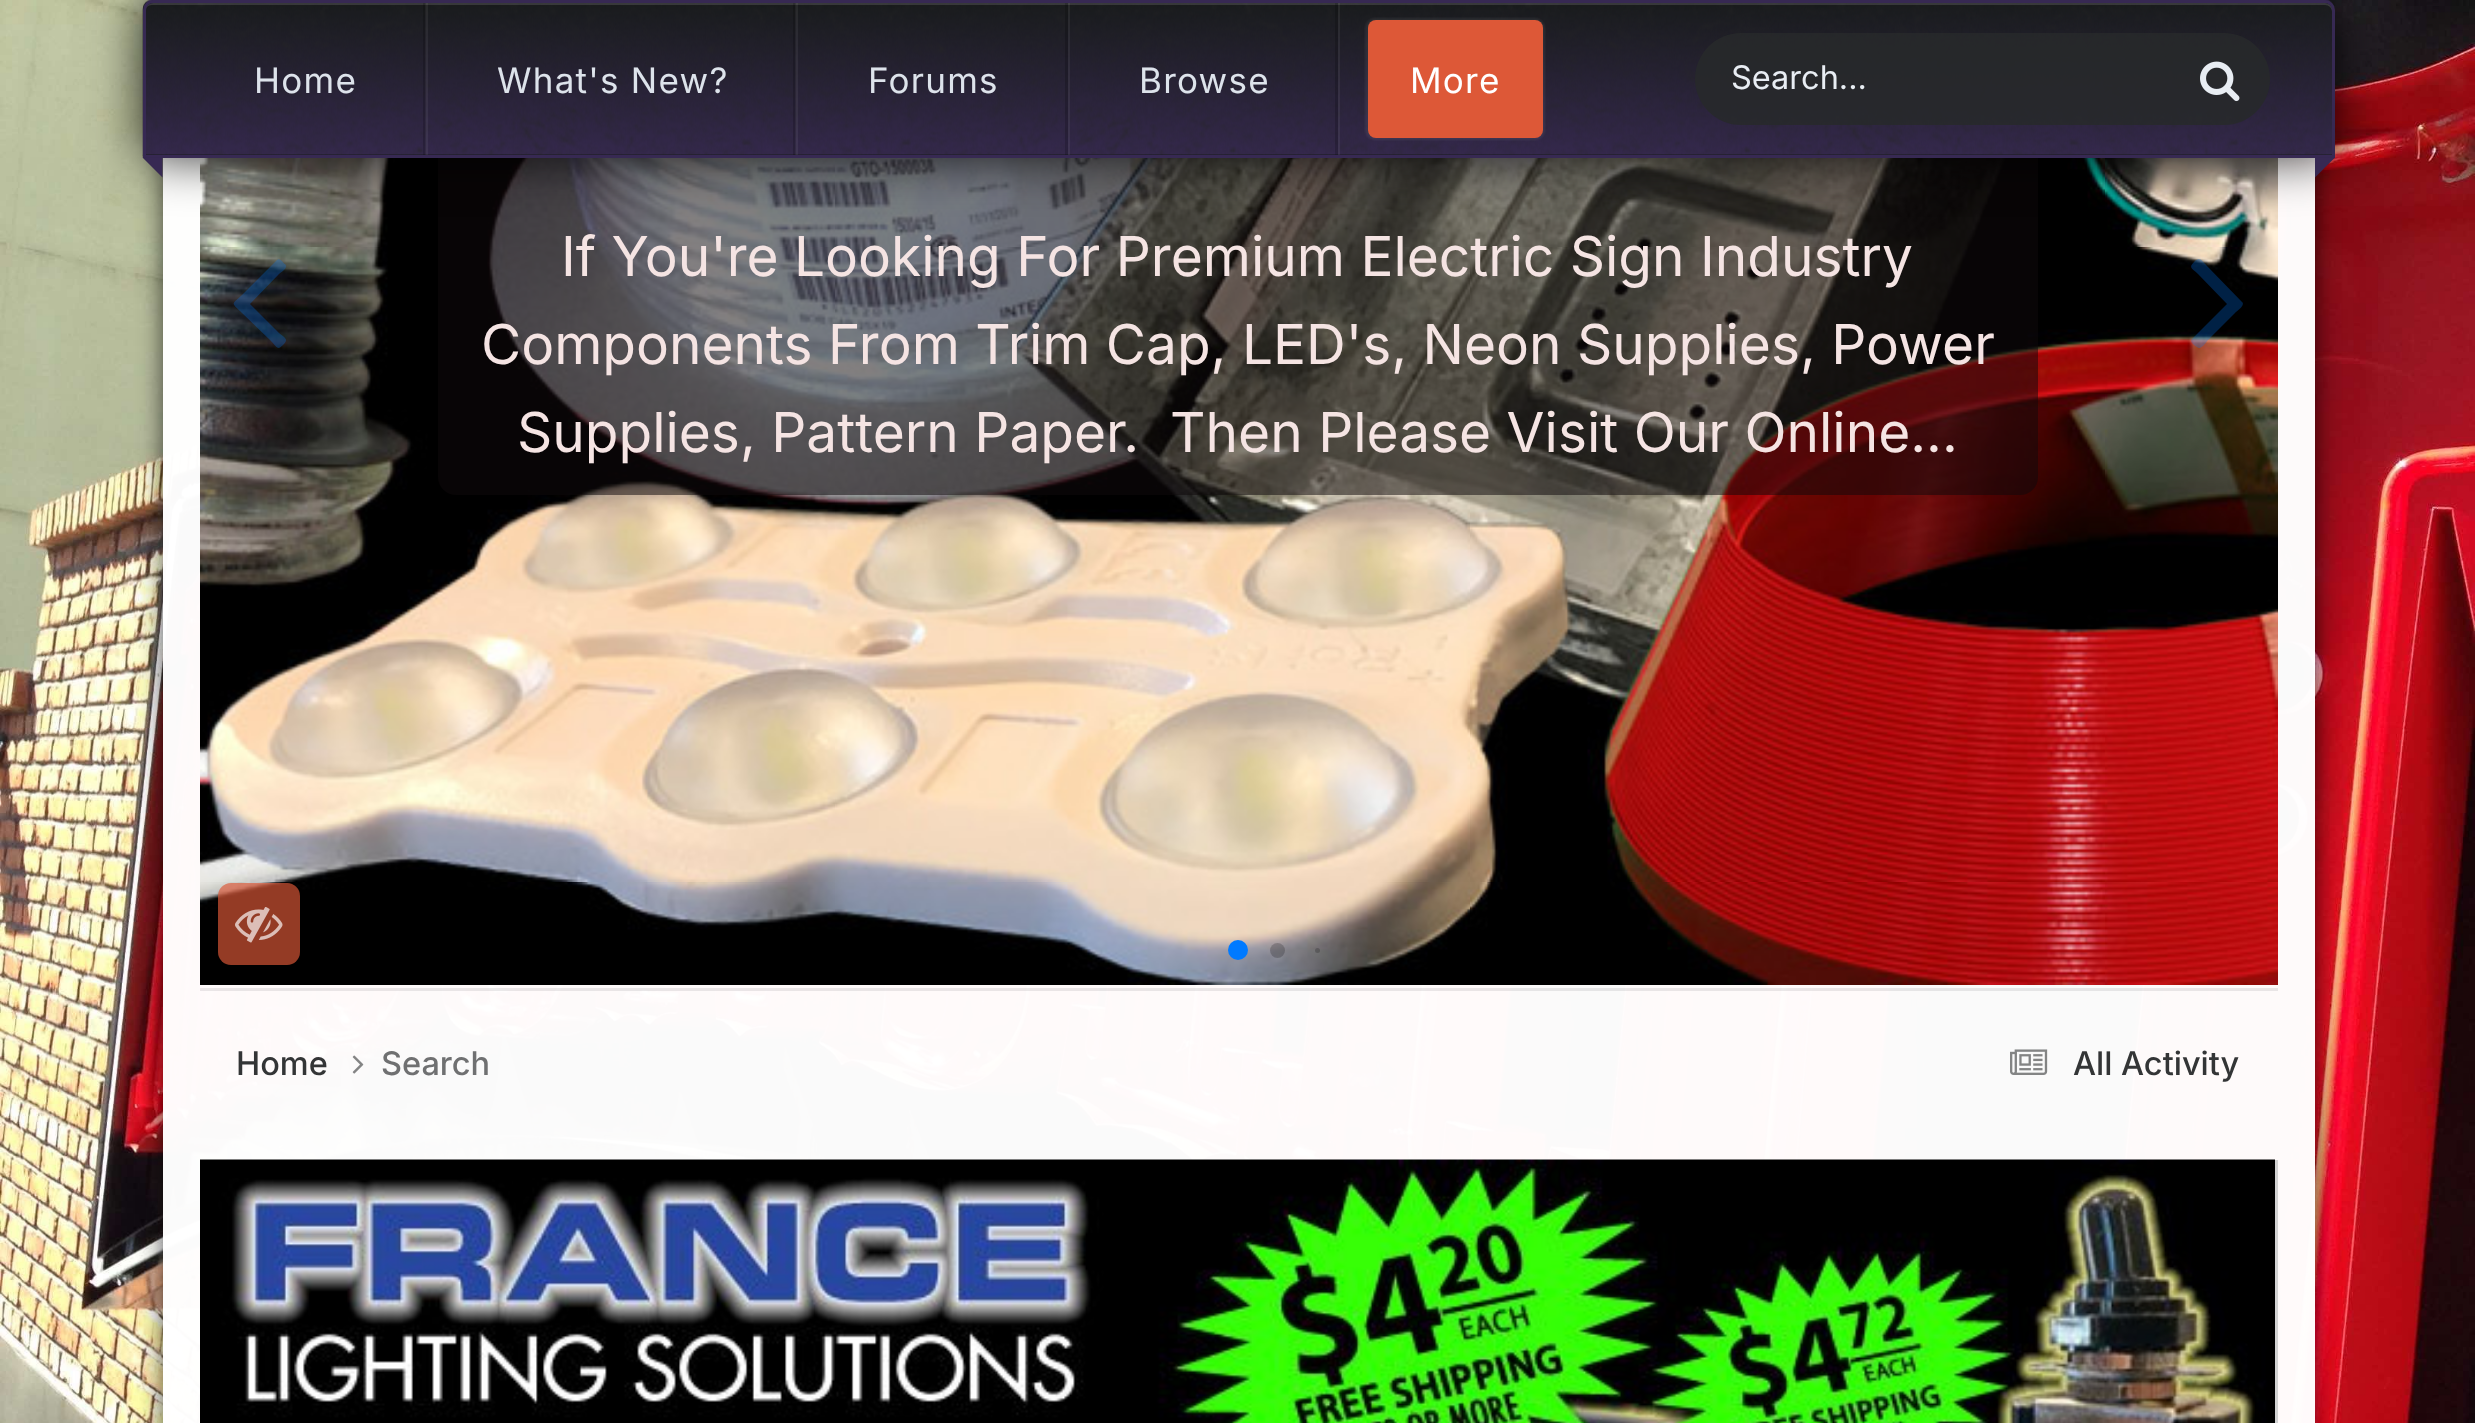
async function draw(canvas) {
  canvas.width = 2475;
  canvas.height = 1423;
  const ctx = canvas.getContext('2d');
  ctx.miterLimit = 4;
  ctx.fontKerning = 'normal';
  function label(s, x, y, font, color) {
    ctx.font = font;
    ctx.fillStyle = color;
    ctx.fillText(s, x, y);
  }
  function rect(x, y, w, h, color) {
    ctx.fillStyle = color;
    ctx.fillRect(x, y, w, h);
  }
  function roundedRect(x, y, w, h, r, color) {
    ctx.fillStyle = color;
    ctx.beginPath();
    ctx.roundRect(x, y, w, h, r);
    ctx.fill();
  }
  async function image(src, x, y, w, h) {
    const img = new Image();
    img.src = src;
    await img.decode();
    ctx.drawImage(img, x, y, w, h);
  }
  let path;

  rect(0, 0, 2475, 1423, '#fff');
  await image('assets/img1.png', 0, 0, 2475, 1423);
  ctx.save();
  path = new Path2D('M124 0H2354V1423H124ZM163-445H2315V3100H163Z');
  ctx.clip(path, 'evenodd');
  ctx.fillStyle = '#000000ab';
  ctx.filter = 'blur(12.5px)';
  ctx.beginPath();
  ctx.rect(163, -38, 2152, 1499);
  ctx.fill();
  ctx.filter = 'none';
  ctx.restore();
  rect(163, 158, 2152, 1265, '#fffffffa');
  await image('assets/img4.png', 200, 158, 2078, 827);
  roundedRect(438, 100, 1600, 395, 18, '#0f0a0c85');
  ctx.fillStyle = '#000000cc';
  ctx.filter = 'blur(25px)';
  ctx.beginPath();
  ctx.roundRect(143, 0, 2192, 158, 10);
  ctx.fill();
  ctx.filter = 'none';
  await image('assets/img2.png', 142, 0, 2193, 158);
  ctx.fillStyle = '#e1e1e126';
  path = new Path2D('M152 5H2325C2329 5 2332 8 2332 12V155H2333V11C2333 7 2329 3 2325 3H153C149 3 145 7 145 11V12C145 8 148 5 152 5Z');
  ctx.fill(path);
  ctx.beginPath();
  ctx.roundRect(144.5, 1.5, 2189, 155, [8.5, 8.5, 0, 0]);
  ctx.strokeStyle = '#372953';
  ctx.lineWidth = 3;
  ctx.stroke();
  rect(425, 3, 3, 152, '#e1e1e112');
  rect(423, 3, 3, 152, '#0000002b');
  ctx.letterSpacing = '1.25px';
  label('Home', 254, 93, '35px Inter', '#dde3eb');
  rect(795, 3, 3, 152, '#e1e1e112');
  rect(793, 3, 3, 152, '#0000002b');
  label('What\'s New?', 497, 93, '35px Inter', '#dde3eb');
  rect(1068, 3, 2, 152, '#e1e1e112');
  rect(1065, 3, 3, 152, '#0000002b');
  label('Forums', 868, 93, '35px Inter', '#dde3eb');
  rect(1338, 3, 2, 152, '#e1e1e112');
  rect(1335, 3, 3, 152, '#0000002b');
  label('Browse', 1139, 93, '35px Inter', '#dde3eb');
  ctx.fillStyle = '#ffffff12';
  ctx.filter = 'blur(1px)';
  ctx.beginPath();
  ctx.roundRect(1365, 18, 180, 122, 10);
  ctx.fill();
  ctx.filter = 'none';
  roundedRect(1368, 20, 175, 118, 8, '#dd5837');
  label('More', 1410, 93, '35px Inter', '#fff');
  roundedRect(1695, 33, 575, 92, 46, '#27292ade');
  ctx.letterSpacing = '0px';
  label('Search...', 1731, 89, '32.5px Inter', '#e8edf3');
  await image('assets/img3.png', 2200, 61, 40, 41);
  ctx.fillStyle = '#372953';
  path = new Path2D('M142.5 157.5H162.5V177.5Z');
  ctx.fill(path);
  path = new Path2D('M2315 157.5H2335L2315 177.5Z');
  ctx.fill(path);
  ctx.fillStyle = '#007aff45';
  path = new Path2D('M285 264C289 268 280 273 279 274L250 304L279 333C284 337 289 339 284 344C277 351 278 348 270 340L242 313C231 302 231 305 242 295L277 260C280 257 283 263 285 264Z');
  ctx.fill(path);
  label('If You\'re Looking For Premium Electric Sign Industry', 561, 276, '55px Inter', '#f5e4e3');
  label('Components From Trim Cap, LED\'s, Neon Supplies, Power', 481, 364, '55px Inter', '#f5e4e3');
  label('Supplies, Pattern Paper.  Then Please Visit Our Online...', 517, 452, '55px Inter', '#f5e4e3');
  ctx.fillStyle = '#007aff45';
  path = new Path2D('M2242 302C2246 305 2236 312 2235 313L2208 340C2207 341 2201 351 2197 347C2195 346 2189 342 2192 339L2227 304L2198 274C2192 268 2188 268 2194 262C2200 256 2201 260 2208 267Z');
  ctx.fill(path);
  ctx.fillStyle = '#007aff';
  ctx.beginPath();
  ctx.arc(1238, 950, 10, 0, 2 * Math.PI);
  ctx.fill();
  ctx.fillStyle = '#00000033';
  ctx.beginPath();
  ctx.arc(1277.5, 950.5, 7.5, 0, 2 * Math.PI);
  ctx.fill();
  ctx.beginPath();
  ctx.arc(1317.5, 950.5, 2.5, 0, 2 * Math.PI);
  ctx.fill();
  rect(200, 988, 2078, 3, '#3335361a');
  roundedRect(218, 883, 82, 82, 13, '#dd5837ab');
  await image('assets/img5.png', 235, 907, 48, 36);
  label('Home', 236, 1075, '500 32.5px Inter', '#333536');
  await image('assets/img6.png', 352, 1055, 12, 19);
  label('Search', 381, 1075, '500 32.5px Inter', '#6f7071');
  await image('assets/img7.png', 2010, 1049, 38, 26);
  label('All Activity', 2073, 1075, '500 32.5px Inter', '#333536');
  rect(2275, 1160, 3, 263, '#d3d3d3');
  await image('assets/img8.png', 200, 1159, 2075, 264);
}

draw(document.querySelector('canvas'));
